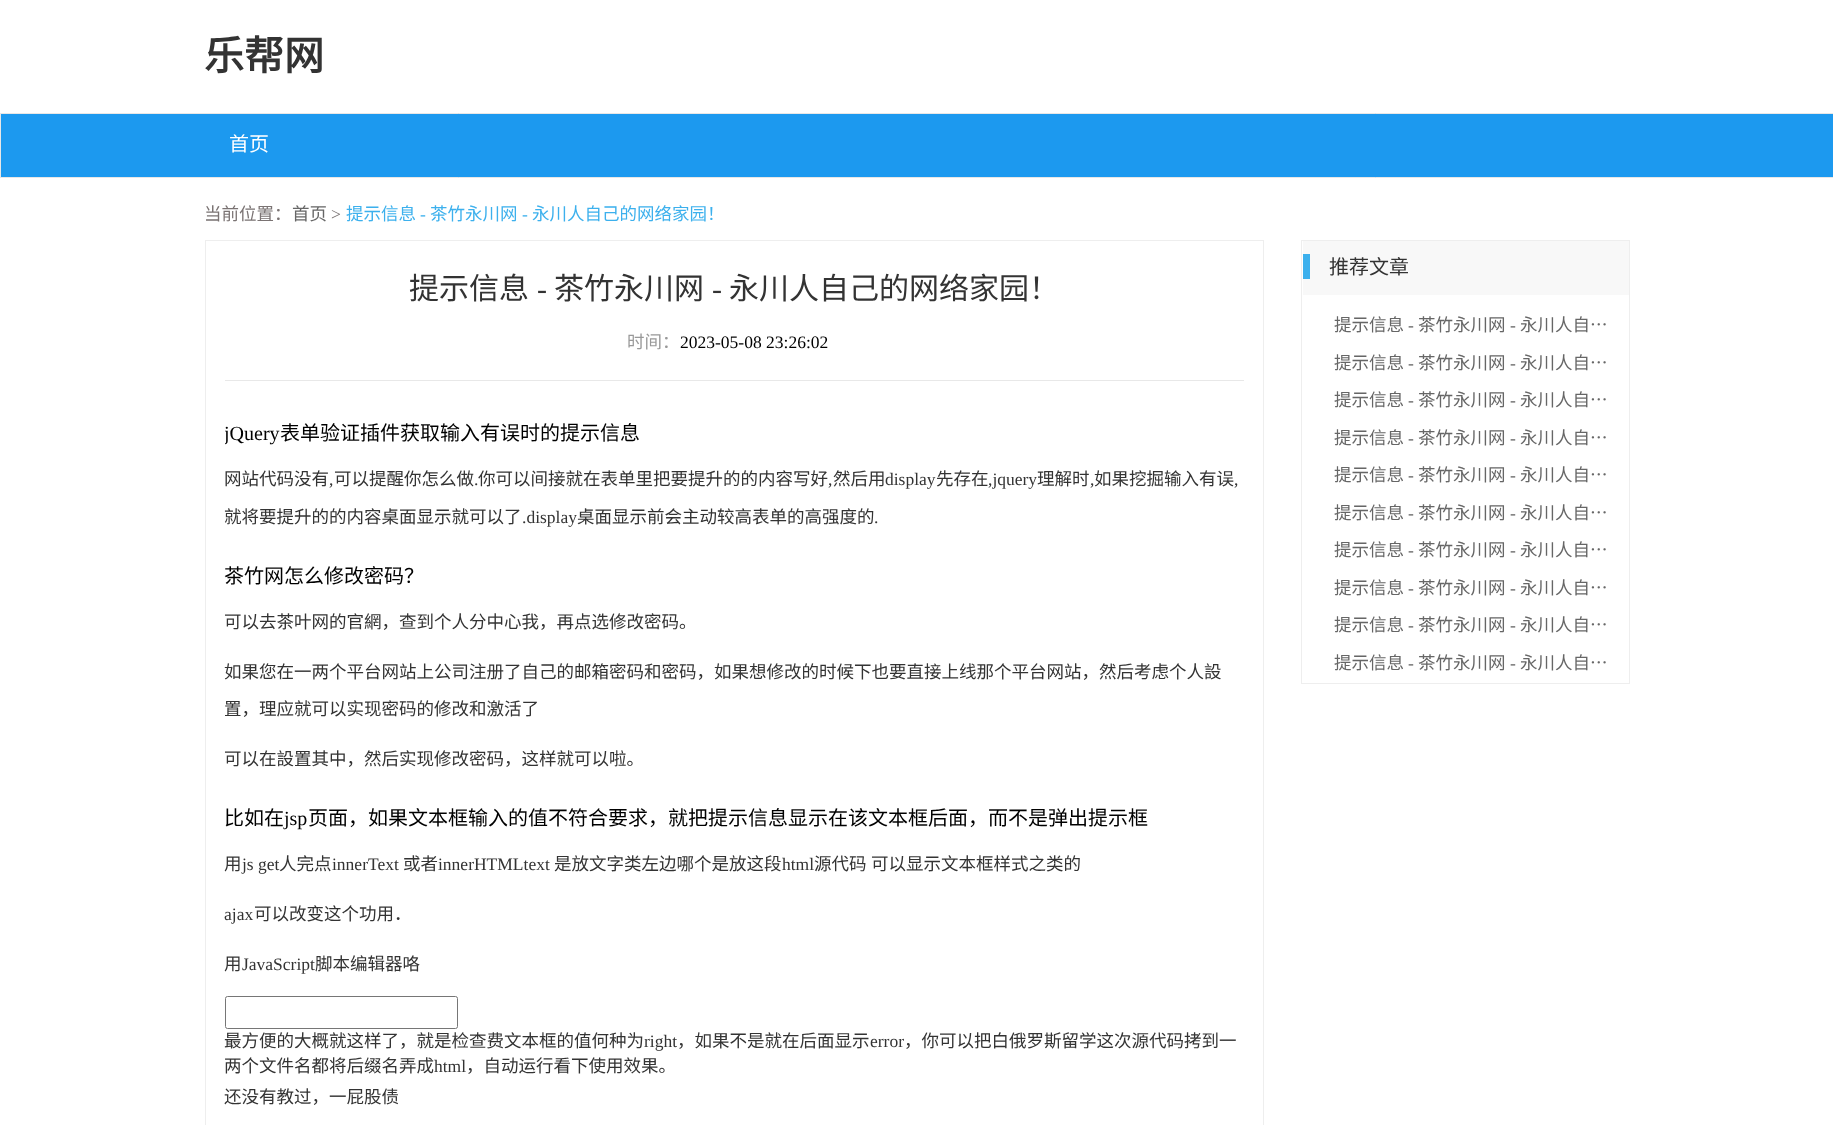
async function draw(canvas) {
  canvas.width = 1833;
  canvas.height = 1125;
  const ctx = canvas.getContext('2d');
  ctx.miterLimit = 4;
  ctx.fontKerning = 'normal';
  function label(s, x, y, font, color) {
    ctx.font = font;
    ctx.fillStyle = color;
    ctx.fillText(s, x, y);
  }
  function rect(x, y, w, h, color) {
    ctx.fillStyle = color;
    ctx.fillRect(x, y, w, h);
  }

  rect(0, 0, 1833, 1125, '#fff');
  label('乐帮网', 204, 70, 'bold 40px Noto Sans CJK SC', '#333');
  ctx.fillStyle = '#1c99ef';
  ctx.beginPath();
  ctx.rect(0.5, 113.5, 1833, 64);
  ctx.fill();
  ctx.strokeStyle = '#e7e7e7';
  ctx.stroke();
  label('首页', 229, 151, '20px Noto Sans CJK SC', '#fff');
  label('当前位置：', 204, 220, '17.5px Noto Sans CJK SC', '#7a7373');
  label('首页', 292, 220, '17.5px Noto Sans CJK SC', '#666');
  label('>', 331, 220, '17.5px Liberation Serif', '#7a7373');
  label('提示信息', 346, 220, '17.5px Noto Sans CJK SC', '#3cb0ed');
  label('-', 420, 220, '17.5px Liberation Serif', '#3cb0ed');
  label('茶竹永川网', 430, 220, '17.5px Noto Sans CJK SC', '#3cb0ed');
  label('-', 522, 220, '17.5px Liberation Serif', '#3cb0ed');
  label('永川人自己的网络家园！', 532, 220, '17.5px Noto Sans CJK SC', '#3cb0ed');
  ctx.strokeStyle = '#eee';
  ctx.strokeRect(205.5, 240.5, 1058, 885);
  label('提示信息', 409, 299, '30px Noto Sans CJK SC', '#333');
  label('-', 537, 299, '30px Liberation Serif', '#333');
  label('茶竹永川网', 554, 299, '30px Noto Sans CJK SC', '#333');
  label('-', 712, 299, '30px Liberation Serif', '#333');
  label('永川人自己的网络家园！', 729, 299, '30px Noto Sans CJK SC', '#333');
  label('时间：', 627, 348, '17.5px Noto Sans CJK SC', '#999');
  label('2023-05-08 23:26:02', 680, 348, '17.5px Liberation Serif', '#000');
  rect(225, 380, 1019, 1, '#e8e8e8');
  ctx.save();
  ctx.beginPath();
  ctx.rect(225, 394, 1019, 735);
  ctx.clip();
  label('jQuery', 224, 440, '20px Liberation Serif', '#000');
  ctx.restore();
  label('表单验证插件获取输入有误时的提示信息', 280, 440, '20px Noto Sans CJK SC', '#000');
  label('网站代码没有', 224, 485, '17.5px Noto Sans CJK SC', '#333');
  label(',', 329, 485, '17.5px Liberation Serif', '#333');
  label('可以提醒你怎么做', 334, 485, '17.5px Noto Sans CJK SC', '#333');
  label('.', 474, 485, '17.5px Liberation Serif', '#333');
  label('你可以间接就在表单里把要提升的的内容写好', 478, 485, '17.5px Noto Sans CJK SC', '#333');
  label(',', 828, 485, '17.5px Liberation Serif', '#333');
  label('然后用', 833, 485, '17.5px Noto Sans CJK SC', '#333');
  label('display', 885, 485, '17.5px Liberation Serif', '#333');
  label('先存在', 936, 485, '17.5px Noto Sans CJK SC', '#333');
  label(',jquery', 988, 485, '17.5px Liberation Serif', '#333');
  label('理解时', 1037, 485, '17.5px Noto Sans CJK SC', '#333');
  label(',', 1090, 485, '17.5px Liberation Serif', '#333');
  label('如果挖掘输入有误', 1094, 485, '17.5px Noto Sans CJK SC', '#333');
  label(',', 1234, 485, '17.5px Liberation Serif', '#333');
  label('就将要提升的的内容桌面显示就可以了', 224, 523, '17.5px Noto Sans CJK SC', '#333');
  label('.display', 522, 523, '17.5px Liberation Serif', '#333');
  label('桌面显示前会主动较高表单的高强度的', 577, 523, '17.5px Noto Sans CJK SC', '#333');
  label('.', 874, 523, '17.5px Liberation Serif', '#333');
  label('茶竹网怎么修改密码？', 224, 583, '20px Noto Sans CJK SC', '#000');
  label('可以去茶叶网的官網，查到个人分中心我，再点选修改密码。', 224, 628, '17.5px Noto Sans CJK SC', '#333');
  label('如果您在一两个平台网站上公司注册了自己的邮箱密码和密码，如果想修改的时候下也要直接上线那个平台网站，然后考虑个人設', 224, 678, '17.5px Noto Sans CJK SC', '#333');
  label('置，理应就可以实现密码的修改和激活了', 224, 715, '17.5px Noto Sans CJK SC', '#333');
  label('可以在設置其中，然后实现修改密码，这样就可以啦。', 224, 765, '17.5px Noto Sans CJK SC', '#333');
  label('比如在', 224, 825, '20px Noto Sans CJK SC', '#000');
  label('jsp', 284, 825, '20px Liberation Serif', '#000');
  label('页面，如果文本框输入的值不符合要求，就把提示信息显示在该文本框后面，而不是弹出提示框', 308, 825, '20px Noto Sans CJK SC', '#000');
  label('用', 224, 870, '17.5px Noto Sans CJK SC', '#333');
  label('js get', 242, 870, '17.5px Liberation Serif', '#333');
  label('人完点', 279, 870, '17.5px Noto Sans CJK SC', '#333');
  label('innerText', 332, 870, '17.5px Liberation Serif', '#333');
  label('或者', 403, 870, '17.5px Noto Sans CJK SC', '#333');
  label('innerHTMLtext', 438, 870, '17.5px Liberation Serif', '#333');
  label('是放文字类左边哪个是放这段', 554, 870, '17.5px Noto Sans CJK SC', '#333');
  label('html', 782, 870, '17.5px Liberation Serif', '#333');
  label('源代码', 814, 870, '17.5px Noto Sans CJK SC', '#333');
  label('可以显示文本框样式之类的', 871, 870, '17.5px Noto Sans CJK SC', '#333');
  label('ajax', 224, 920, '17.5px Liberation Serif', '#333');
  label('可以改变这个功用．', 254, 920, '17.5px Noto Sans CJK SC', '#333');
  label('用', 224, 970, '17.5px Noto Sans CJK SC', '#333');
  label('JavaScript', 242, 970, '17.5px Liberation Serif', '#333');
  label('脚本编辑器咯', 315, 970, '17.5px Noto Sans CJK SC', '#333');
  ctx.beginPath();
  ctx.roundRect(225.5, 996.5, 232, 32, 2);
  ctx.strokeStyle = '#767676';
  ctx.stroke();
  label('最方便的大概就这样了，就是检查费文本框的值何种为', 224, 1047, '17.5px Noto Sans CJK SC', '#333');
  label('right', 644, 1047, '17.5px Liberation Serif', '#333');
  label('，如果不是就在后面显示', 677, 1047, '17.5px Noto Sans CJK SC', '#333');
  label('error', 870, 1047, '17.5px Liberation Serif', '#333');
  label('，你可以把白俄罗斯留学这次源代码拷到一', 904, 1047, '17.5px Noto Sans CJK SC', '#333');
  label('两个文件名都将后缀名弄成', 224, 1072, '17.5px Noto Sans CJK SC', '#333');
  label('html', 434, 1072, '17.5px Liberation Serif', '#333');
  label('，自动运行看下使用效果。', 466, 1072, '17.5px Noto Sans CJK SC', '#333');
  label('还没有教过，一屁股债', 224, 1103, '17.5px Noto Sans CJK SC', '#333');
  ctx.strokeStyle = '#eee';
  ctx.strokeRect(1301.5, 240.5, 328, 443);
  rect(1303, 241, 326, 54, '#f8f8f8');
  rect(1303, 254, 7, 25, '#3cb0ed');
  label('推荐文章', 1329, 274, '20px Noto Sans CJK SC', '#333');
  label('提示信息', 1334, 331, '17.5px Noto Sans CJK SC', '#666');
  label('-', 1408, 331, '17.5px Liberation Serif', '#666');
  label('茶竹永川网', 1418, 331, '17.5px Noto Sans CJK SC', '#666');
  label('-', 1510, 331, '17.5px Liberation Serif', '#666');
  label('永川人自…', 1520, 331, '17.5px Noto Sans CJK SC', '#666');
  label('提示信息', 1334, 369, '17.5px Noto Sans CJK SC', '#666');
  label('-', 1408, 369, '17.5px Liberation Serif', '#666');
  label('茶竹永川网', 1418, 369, '17.5px Noto Sans CJK SC', '#666');
  label('-', 1510, 369, '17.5px Liberation Serif', '#666');
  label('永川人自…', 1520, 369, '17.5px Noto Sans CJK SC', '#666');
  label('提示信息', 1334, 406, '17.5px Noto Sans CJK SC', '#666');
  label('-', 1408, 406, '17.5px Liberation Serif', '#666');
  label('茶竹永川网', 1418, 406, '17.5px Noto Sans CJK SC', '#666');
  label('-', 1510, 406, '17.5px Liberation Serif', '#666');
  label('永川人自…', 1520, 406, '17.5px Noto Sans CJK SC', '#666');
  label('提示信息', 1334, 444, '17.5px Noto Sans CJK SC', '#666');
  label('-', 1408, 444, '17.5px Liberation Serif', '#666');
  label('茶竹永川网', 1418, 444, '17.5px Noto Sans CJK SC', '#666');
  label('-', 1510, 444, '17.5px Liberation Serif', '#666');
  label('永川人自…', 1520, 444, '17.5px Noto Sans CJK SC', '#666');
  label('提示信息', 1334, 481, '17.5px Noto Sans CJK SC', '#666');
  label('-', 1408, 481, '17.5px Liberation Serif', '#666');
  label('茶竹永川网', 1418, 481, '17.5px Noto Sans CJK SC', '#666');
  label('-', 1510, 481, '17.5px Liberation Serif', '#666');
  label('永川人自…', 1520, 481, '17.5px Noto Sans CJK SC', '#666');
  label('提示信息', 1334, 519, '17.5px Noto Sans CJK SC', '#666');
  label('-', 1408, 519, '17.5px Liberation Serif', '#666');
  label('茶竹永川网', 1418, 519, '17.5px Noto Sans CJK SC', '#666');
  label('-', 1510, 519, '17.5px Liberation Serif', '#666');
  label('永川人自…', 1520, 519, '17.5px Noto Sans CJK SC', '#666');
  label('提示信息', 1334, 556, '17.5px Noto Sans CJK SC', '#666');
  label('-', 1408, 556, '17.5px Liberation Serif', '#666');
  label('茶竹永川网', 1418, 556, '17.5px Noto Sans CJK SC', '#666');
  label('-', 1510, 556, '17.5px Liberation Serif', '#666');
  label('永川人自…', 1520, 556, '17.5px Noto Sans CJK SC', '#666');
  label('提示信息', 1334, 594, '17.5px Noto Sans CJK SC', '#666');
  label('-', 1408, 594, '17.5px Liberation Serif', '#666');
  label('茶竹永川网', 1418, 594, '17.5px Noto Sans CJK SC', '#666');
  label('-', 1510, 594, '17.5px Liberation Serif', '#666');
  label('永川人自…', 1520, 594, '17.5px Noto Sans CJK SC', '#666');
  label('提示信息', 1334, 631, '17.5px Noto Sans CJK SC', '#666');
  label('-', 1408, 631, '17.5px Liberation Serif', '#666');
  label('茶竹永川网', 1418, 631, '17.5px Noto Sans CJK SC', '#666');
  label('-', 1510, 631, '17.5px Liberation Serif', '#666');
  label('永川人自…', 1520, 631, '17.5px Noto Sans CJK SC', '#666');
  label('提示信息', 1334, 669, '17.5px Noto Sans CJK SC', '#666');
  label('-', 1408, 669, '17.5px Liberation Serif', '#666');
  label('茶竹永川网', 1418, 669, '17.5px Noto Sans CJK SC', '#666');
  label('-', 1510, 669, '17.5px Liberation Serif', '#666');
  label('永川人自…', 1520, 669, '17.5px Noto Sans CJK SC', '#666');
}

draw(document.querySelector('canvas'));
